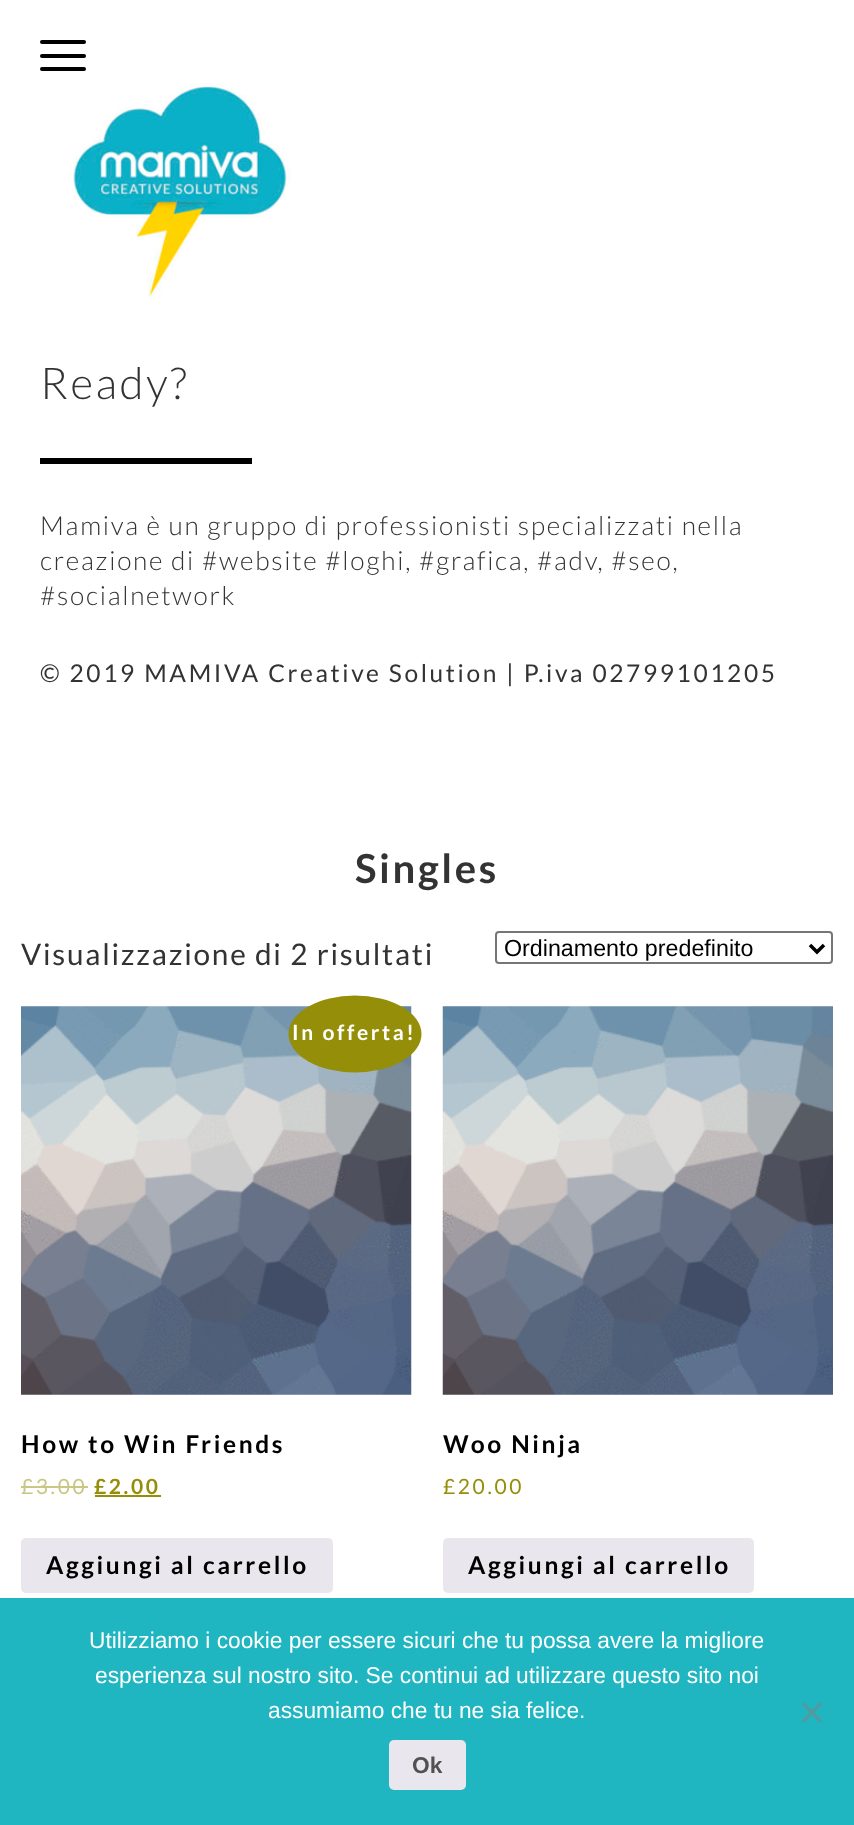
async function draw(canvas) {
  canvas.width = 854;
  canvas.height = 1825;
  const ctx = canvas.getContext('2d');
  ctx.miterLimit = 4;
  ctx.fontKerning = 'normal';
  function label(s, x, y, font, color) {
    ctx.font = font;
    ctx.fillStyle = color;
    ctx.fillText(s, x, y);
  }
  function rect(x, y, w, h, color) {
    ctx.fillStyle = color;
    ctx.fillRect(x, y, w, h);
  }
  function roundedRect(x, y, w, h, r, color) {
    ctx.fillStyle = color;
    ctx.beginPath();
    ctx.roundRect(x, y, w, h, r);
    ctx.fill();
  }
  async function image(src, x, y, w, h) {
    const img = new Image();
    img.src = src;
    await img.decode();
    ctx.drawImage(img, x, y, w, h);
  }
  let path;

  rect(0, 0, 854, 1825, '#fff');
  roundedRect(40, 54, 46, 4, 2, '#000');
  roundedRect(40, 40, 46, 4, 2, '#000');
  roundedRect(40, 67, 46, 4, 2, '#000');
  await image('assets/img1.png', 73, 83, 218, 216);
  rect(40, 458, 212, 6, '#000');
  ctx.letterSpacing = '2.62px';
  label('Ready?', 40, 399, '300 44px Lato', '#333');
  ctx.letterSpacing = '1.75px';
  label('Mamiva è un gruppo di professionisti specializzati nella', 40, 535, '300 26.25px Lato', '#333');
  label('creazione di #website #loghi, #grafica, #adv, #seo,', 40, 570, '300 26.25px Lato', '#333');
  label('#socialnetwork', 40, 605, '300 26.25px Lato', '#333');
  ctx.letterSpacing = '2.62px';
  label('© 2019 MAMIVA Creative Solution | P.iva 02799101205', 40, 682, '24.5px Lato', '#333');
  label('Singles', 355, 883, 'bold 40px Lato', '#333');
  ctx.letterSpacing = '1.75px';
  label('Visualizzazione di 2 risultati', 21, 965, '29.75px Lato', '#333');
  ctx.beginPath();
  ctx.roundRect(496, 932, 336, 31, 3);
  ctx.strokeStyle = '#767676';
  ctx.lineWidth = 2;
  ctx.stroke();
  path = new Path2D('M810 945L817 952L824 945');
  ctx.strokeStyle = '#000';
  ctx.lineWidth = 3.5;
  ctx.stroke(path);
  ctx.letterSpacing = '0px';
  label('Ordinamento predefinito', 504, 956, '23.25px Liberation Sans', '#000');
  await image('assets/img2.png', 21, 1006, 391, 389);
  ctx.fillStyle = '#958e09';
  ctx.beginPath();
  ctx.ellipse(355, 1034, 66.5, 38.5, 0, 0, 2 * Math.PI);
  ctx.fill();
  ctx.letterSpacing = '2.62px';
  label('In offerta!', 292, 1040, 'bold 21px Lato', '#fff');
  label('How to Win Friends', 21, 1453, 'bold 24.5px Lato', '#000');
  label('£3.00', 21, 1494, '21px Lato', '#cac784');
  rect(21, 1486, 67, 2, '#cac784');
  label('£2.00', 94, 1494, 'bold 21px Lato', '#958e09');
  rect(95, 1495, 66, 2, '#958e09');
  roundedRect(21, 1538, 312, 55, 5, '#e9e6ed');
  label('Aggiungi al carrello', 46, 1574, 'bold 24.5px Lato', '#000');
  await image('assets/img3.png', 442, 1006, 391, 389);
  label('Woo Ninja', 443, 1453, 'bold 24.5px Lato', '#000');
  label('£20.00', 443, 1494, '21px Lato', '#958e09');
  roundedRect(443, 1538, 311, 55, 5, '#e9e6ed');
  label('Aggiungi al carrello', 468, 1574, 'bold 24.5px Lato', '#000');
  rect(0, 1598, 854, 227, '#1fb6c1');
  ctx.letterSpacing = '0px';
  label('Utilizziamo i cookie per essere sicuri che tu possa avere la migliore', 89, 1648, '22.75px Liberation Sans', '#fff');
  label('esperienza sul nostro sito. Se continui ad utilizzare questo sito noi', 95, 1683, '22.75px Liberation Sans', '#fff');
  label('assumiamo che tu ne sia felice.', 268, 1718, '22.75px Liberation Sans', '#fff');
  ctx.fillStyle = '#509ba1';
  path = new Path2D('M820 1702L822.5 1704.5L804 1723L801.5 1720.5Z');
  ctx.fill(path);
  path = new Path2D('M801.5 1704.5L804 1702L822.5 1720.5L820 1723Z');
  ctx.fill(path);
  roundedRect(389, 1740, 77, 50, 5, '#e9e6ed');
  label('Ok', 412, 1773, 'bold 22.75px Liberation Sans', '#515151');
}

draw(document.querySelector('canvas'));
